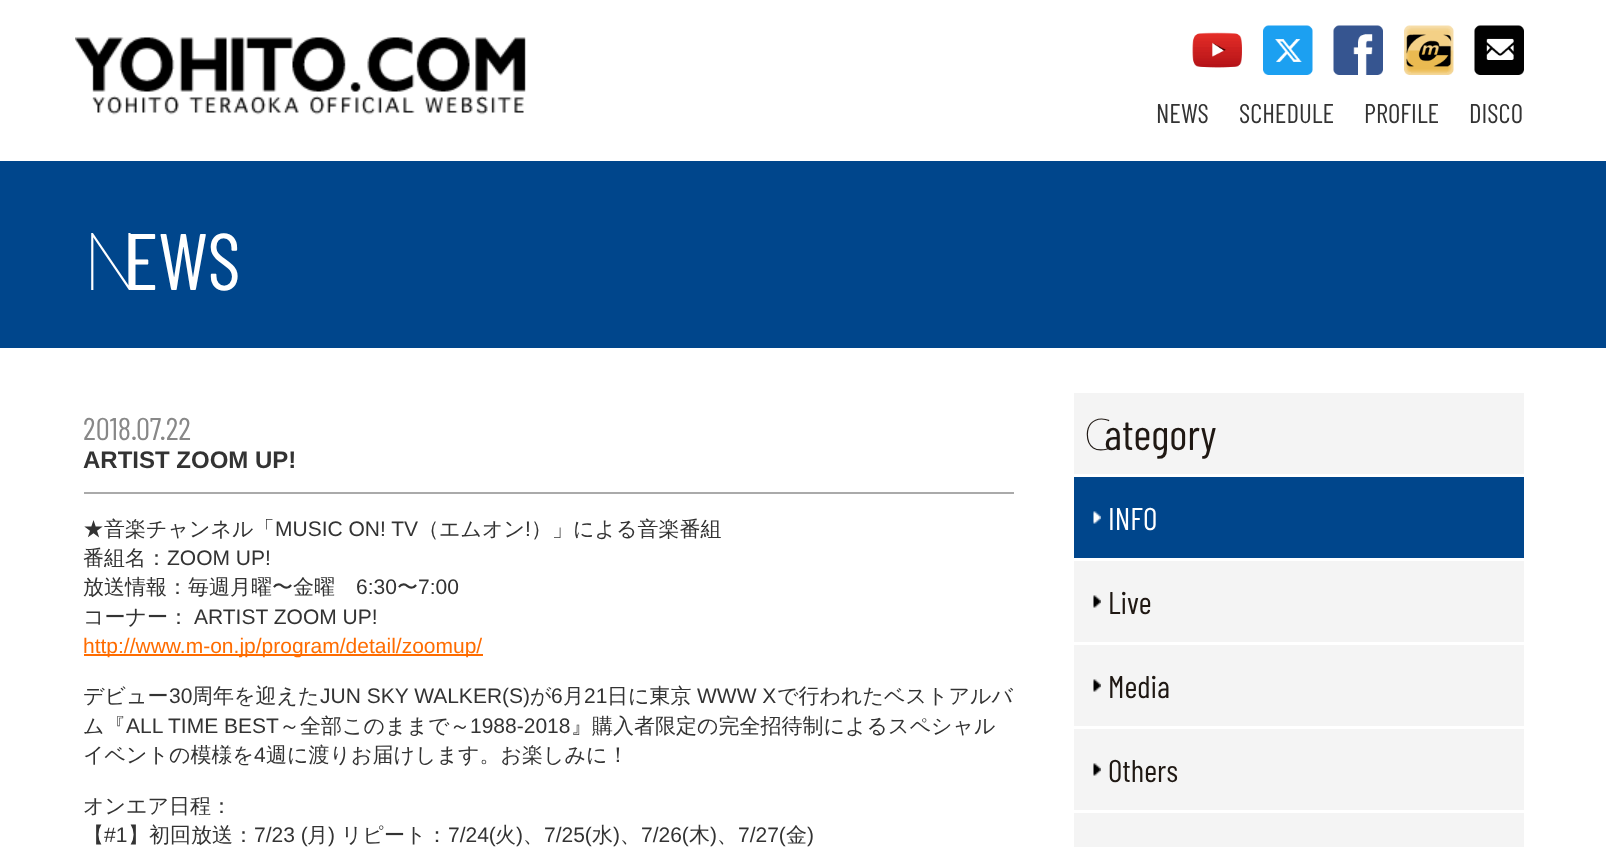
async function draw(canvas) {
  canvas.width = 1606;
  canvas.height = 847;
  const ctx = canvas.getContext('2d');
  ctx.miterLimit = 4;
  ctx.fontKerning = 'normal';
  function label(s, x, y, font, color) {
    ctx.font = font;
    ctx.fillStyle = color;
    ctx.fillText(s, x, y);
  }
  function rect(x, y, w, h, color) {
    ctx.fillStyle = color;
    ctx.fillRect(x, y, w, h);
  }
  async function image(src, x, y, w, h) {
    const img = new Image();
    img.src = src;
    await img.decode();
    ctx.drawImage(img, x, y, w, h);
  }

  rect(0, 0, 1606, 847, '#fff');
  await image('assets/img1.png', 75, 37, 451, 78);
  await image('assets/img2.png', 1192, 32, 50, 36);
  await image('assets/img3.png', 1263, 25, 50, 50);
  await image('assets/img4.png', 1333, 25, 50, 50);
  await image('assets/img5.png', 1404, 25, 50, 50);
  await image('assets/img6.png', 1474, 25, 50, 50);
  label('NEWS', 1156, 123, '27px Barlow Condensed', '#333');
  label('SCHEDULE', 1239, 123, '27px Barlow Condensed', '#333');
  label('PROFILE', 1364, 123, '27px Barlow Condensed', '#333');
  label('DISCO', 1469, 123, '27px Barlow Condensed', '#333');
  rect(0, 161, 1606, 187, '#00468c');
  label('N', 83, 290, '100 80px Noto Sans', '#fff');
  label('EWS', 124, 290, '80px Barlow Condensed', '#fff');
  rect(84, 492, 930, 2, '#aaa');
  label('2018.07.22', 83, 440, '31.5px Barlow Condensed', '#888');
  label('ARTIST ZOOM UP!', 83, 468, 'bold 24px Liberation Sans', '#333');
  label('★音楽チャンネル「', 83, 536, '500 21px WenQuanYi Zen Hei', '#333');
  label('MUSIC ON! TV', 275, 536, '21px Liberation Sans', '#333');
  label('（エムオン', 418, 536, '500 21px WenQuanYi Zen Hei', '#333');
  label('!', 525, 536, '21px Liberation Sans', '#333');
  label('）」による音楽番組', 531, 536, '500 21px WenQuanYi Zen Hei', '#333');
  label('番組名：', 83, 565, '500 21px WenQuanYi Zen Hei', '#333');
  label('ZOOM UP!', 167, 565, '21px Liberation Sans', '#333');
  label('放送情報：毎週月曜〜金曜', 83, 594, '500 21px WenQuanYi Zen Hei', '#333');
  label('6:30', 356, 594, '21px Liberation Sans', '#333');
  label('〜', 397, 594, '500 21px WenQuanYi Zen Hei', '#333');
  label('7:00', 418, 594, '21px Liberation Sans', '#333');
  label('コーナー：', 83, 624, '500 21px WenQuanYi Zen Hei', '#333');
  label('ARTIST ZOOM UP!', 194, 624, '21px Liberation Sans', '#333');
  rect(84, 654, 399, 2, '#ff6c00');
  label('http://www.m-on.jp/program/detail/zoomup/', 83, 653, '21px Liberation Sans', '#ff6c00');
  label('デビュー', 83, 703, '500 21px WenQuanYi Zen Hei', '#333');
  label('30', 169, 703, '21px Liberation Sans', '#333');
  label('周年を迎えた', 192, 703, '500 21px WenQuanYi Zen Hei', '#333');
  label('JUN SKY WALKER(S)', 320, 703, '21px Liberation Sans', '#333');
  label('が', 530, 703, '500 21px WenQuanYi Zen Hei', '#333');
  label('6', 551, 703, '21px Liberation Sans', '#333');
  label('月', 563, 703, '500 21px WenQuanYi Zen Hei', '#333');
  label('21', 584, 703, '21px Liberation Sans', '#333');
  label('日に東京', 607, 703, '500 21px WenQuanYi Zen Hei', '#333');
  label('WWW X', 697, 703, '21px Liberation Sans', '#333');
  label('で行われたベストアルバ', 777, 703, '500 21px WenQuanYi Zen Hei', '#333');
  label('ム『', 83, 733, '500 21px WenQuanYi Zen Hei', '#333');
  label('ALL TIME BEST', 126, 733, '21px Liberation Sans', '#333');
  label('～全部このままで～', 279, 733, '500 21px WenQuanYi Zen Hei', '#333');
  label('1988-2018', 470, 733, '21px Liberation Sans', '#333');
  label('』購入者限定の完全招待制によるスペシャル', 571, 733, '500 21px WenQuanYi Zen Hei', '#333');
  label('イベントの模様を', 83, 762, '500 21px WenQuanYi Zen Hei', '#333');
  label('4', 254, 762, '21px Liberation Sans', '#333');
  label('週に渡りお届けします。お楽しみに！', 266, 762, '500 21px WenQuanYi Zen Hei', '#333');
  label('オンエア日程：', 83, 813, '500 21px WenQuanYi Zen Hei', '#333');
  label('【', 83, 842, '500 21px WenQuanYi Zen Hei', '#333');
  label('#1', 104, 842, '21px Liberation Sans', '#333');
  label('】初回放送：', 128, 842, '500 21px WenQuanYi Zen Hei', '#333');
  label('7/23 (', 254, 842, '21px Liberation Sans', '#333');
  label('月', 307, 842, '500 21px WenQuanYi Zen Hei', '#333');
  label(')', 328, 842, '21px Liberation Sans', '#333');
  label('リピート：', 341, 842, '500 21px WenQuanYi Zen Hei', '#333');
  label('7/24(', 448, 842, '21px Liberation Sans', '#333');
  label('火', 495, 842, '500 21px WenQuanYi Zen Hei', '#333');
  label(')', 516, 842, '21px Liberation Sans', '#333');
  label('7/25(', 544, 842, '21px Liberation Sans', '#333');
  label('水', 592, 842, '500 21px WenQuanYi Zen Hei', '#333');
  label(')', 613, 842, '21px Liberation Sans', '#333');
  label('7/26(', 641, 842, '21px Liberation Sans', '#333');
  label('木', 689, 842, '500 21px WenQuanYi Zen Hei', '#333');
  label(')', 710, 842, '21px Liberation Sans', '#333');
  label('7/27(', 738, 842, '21px Liberation Sans', '#333');
  label('金', 786, 842, '500 21px WenQuanYi Zen Hei', '#333');
  label(')', 807, 842, '21px Liberation Sans', '#333');
  label('、', 523, 842, '500 21px WenQuanYi Zen Hei', '#333');
  label('、', 620, 842, '500 21px WenQuanYi Zen Hei', '#333');
  label('、', 717, 842, '500 21px WenQuanYi Zen Hei', '#333');
  rect(1074, 393, 450, 81, '#f4f4f4');
  label('C', 1084, 450, '100 43.5px Noto Sans', '#1f1813');
  label('ategory', 1104, 450, '43.5px Barlow Condensed', '#1f1813');
  rect(1074, 477, 450, 81, '#00468c');
  await image('assets/img7.png', 1093, 511, 8, 13);
  label('INFO', 1108, 530, '31.5px Barlow Condensed', '#fff');
  rect(1074, 561, 450, 81, '#f4f4f4');
  await image('assets/img8.png', 1093, 595, 8, 13);
  label('Live', 1108, 614, '31.5px Barlow Condensed', '#1f1813');
  rect(1074, 645, 450, 81, '#f4f4f4');
  await image('assets/img8.png', 1093, 679, 8, 13);
  label('Media', 1108, 698, '31.5px Barlow Condensed', '#1f1813');
  rect(1074, 729, 450, 81, '#f4f4f4');
  await image('assets/img8.png', 1093, 763, 8, 13);
  label('Others', 1108, 782, '31.5px Barlow Condensed', '#1f1813');
  rect(1074, 813, 450, 34, '#f4f4f4');
}

draw(document.querySelector('canvas'));
